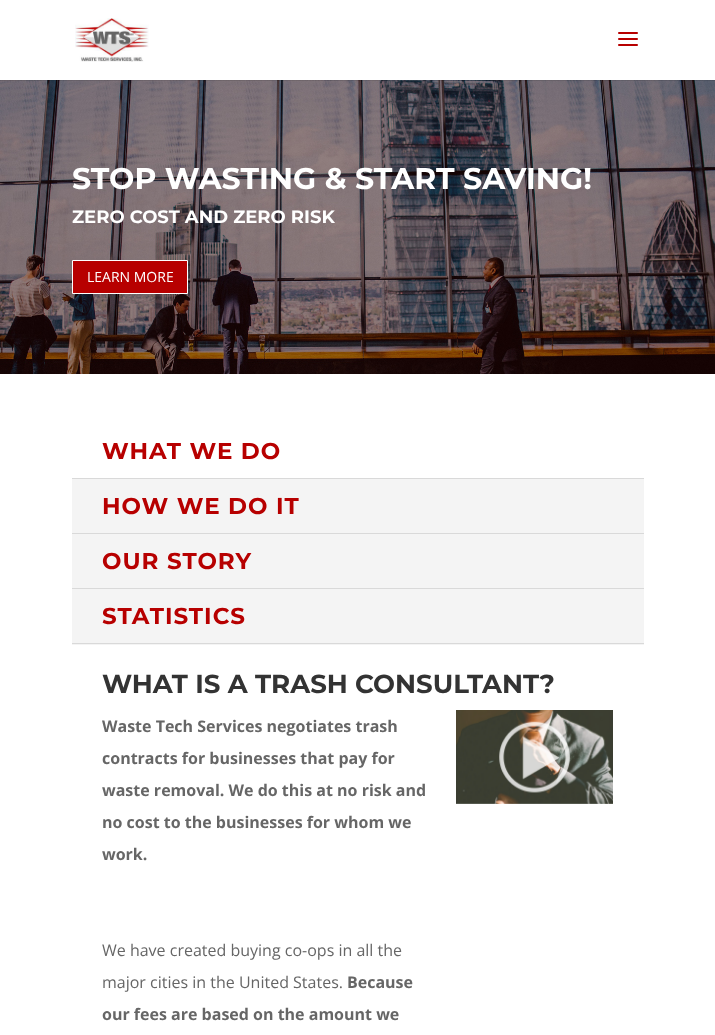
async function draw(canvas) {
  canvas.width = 715;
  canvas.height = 1035;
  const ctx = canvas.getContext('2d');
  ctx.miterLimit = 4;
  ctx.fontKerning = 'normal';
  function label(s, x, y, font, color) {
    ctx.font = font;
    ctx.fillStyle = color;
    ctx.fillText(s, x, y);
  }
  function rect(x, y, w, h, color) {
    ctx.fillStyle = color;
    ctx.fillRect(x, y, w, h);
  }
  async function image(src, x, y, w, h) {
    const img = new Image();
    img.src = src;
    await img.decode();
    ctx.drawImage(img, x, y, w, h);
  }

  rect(0, 0, 715, 1035, '#fff');
  await image('assets/img3.png', 0, 80, 715, 294);
  rect(0, 80, 715, 1, '#0000001a');
  await image('assets/img1.png', 75, 18, 74, 44);
  await image('assets/img2.png', 618, 32, 20, 14);
  label('STOP WASTING & START SAVING!', 72, 189, 'bold 30px Montserrat', '#fff');
  label('ZERO COST AND ZERO RISK', 72, 223, 'bold 18px Montserrat', '#fff');
  ctx.fillStyle = '#b70000';
  ctx.beginPath();
  ctx.rect(72.5, 260.5, 115, 33);
  ctx.fill();
  ctx.strokeStyle = '#fff';
  ctx.stroke();
  label('LEARN MORE', 87, 282, '14px Open Sans', '#fff');
  rect(72, 479, 572, 166, '#f4f4f4');
  rect(72, 478, 572, 1, '#d9d9d9');
  ctx.letterSpacing = '1px';
  label('WHAT WE DO', 102, 459, 'bold 23px Montserrat', '#b70000');
  rect(72, 533, 572, 1, '#d9d9d9');
  label('HOW WE DO IT', 102, 514, 'bold 23px Montserrat', '#b70000');
  rect(72, 588, 572, 1, '#d9d9d9');
  label('OUR STORY', 102, 569, 'bold 23px Montserrat', '#b70000');
  label('STATISTICS', 102, 624, 'bold 23px Montserrat', '#b70000');
  rect(72, 643, 572, 1, '#d9d9d9');
  ctx.letterSpacing = '0px';
  label('WHAT IS A TRASH CONSULTANT?', 102, 693, 'bold 26px Montserrat', '#333');
  label('Waste Tech Services negotiates trash', 102, 732, 'bold 16px Open Sans', '#666');
  label('contracts for businesses that pay for', 102, 764, 'bold 16px Open Sans', '#666');
  label('waste removal. We do this at no risk and', 102, 796, 'bold 16px Open Sans', '#666');
  label('no cost to the businesses for whom we', 102, 828, 'bold 16px Open Sans', '#666');
  label('work.', 102, 860, 'bold 16px Open Sans', '#666');
  label('We have created buying co-ops in all the', 102, 956, '16px Open Sans', '#666');
  label('major cities in the United States.', 102, 988, '16px Open Sans', '#666');
  label('Because', 347, 988, 'bold 16px Open Sans', '#666');
  label('our fees are based on the amount we', 102, 1020, 'bold 16px Open Sans', '#666');
  await image('assets/img4.png', 456, 710, 157, 94);
}

draw(document.querySelector('canvas'));
